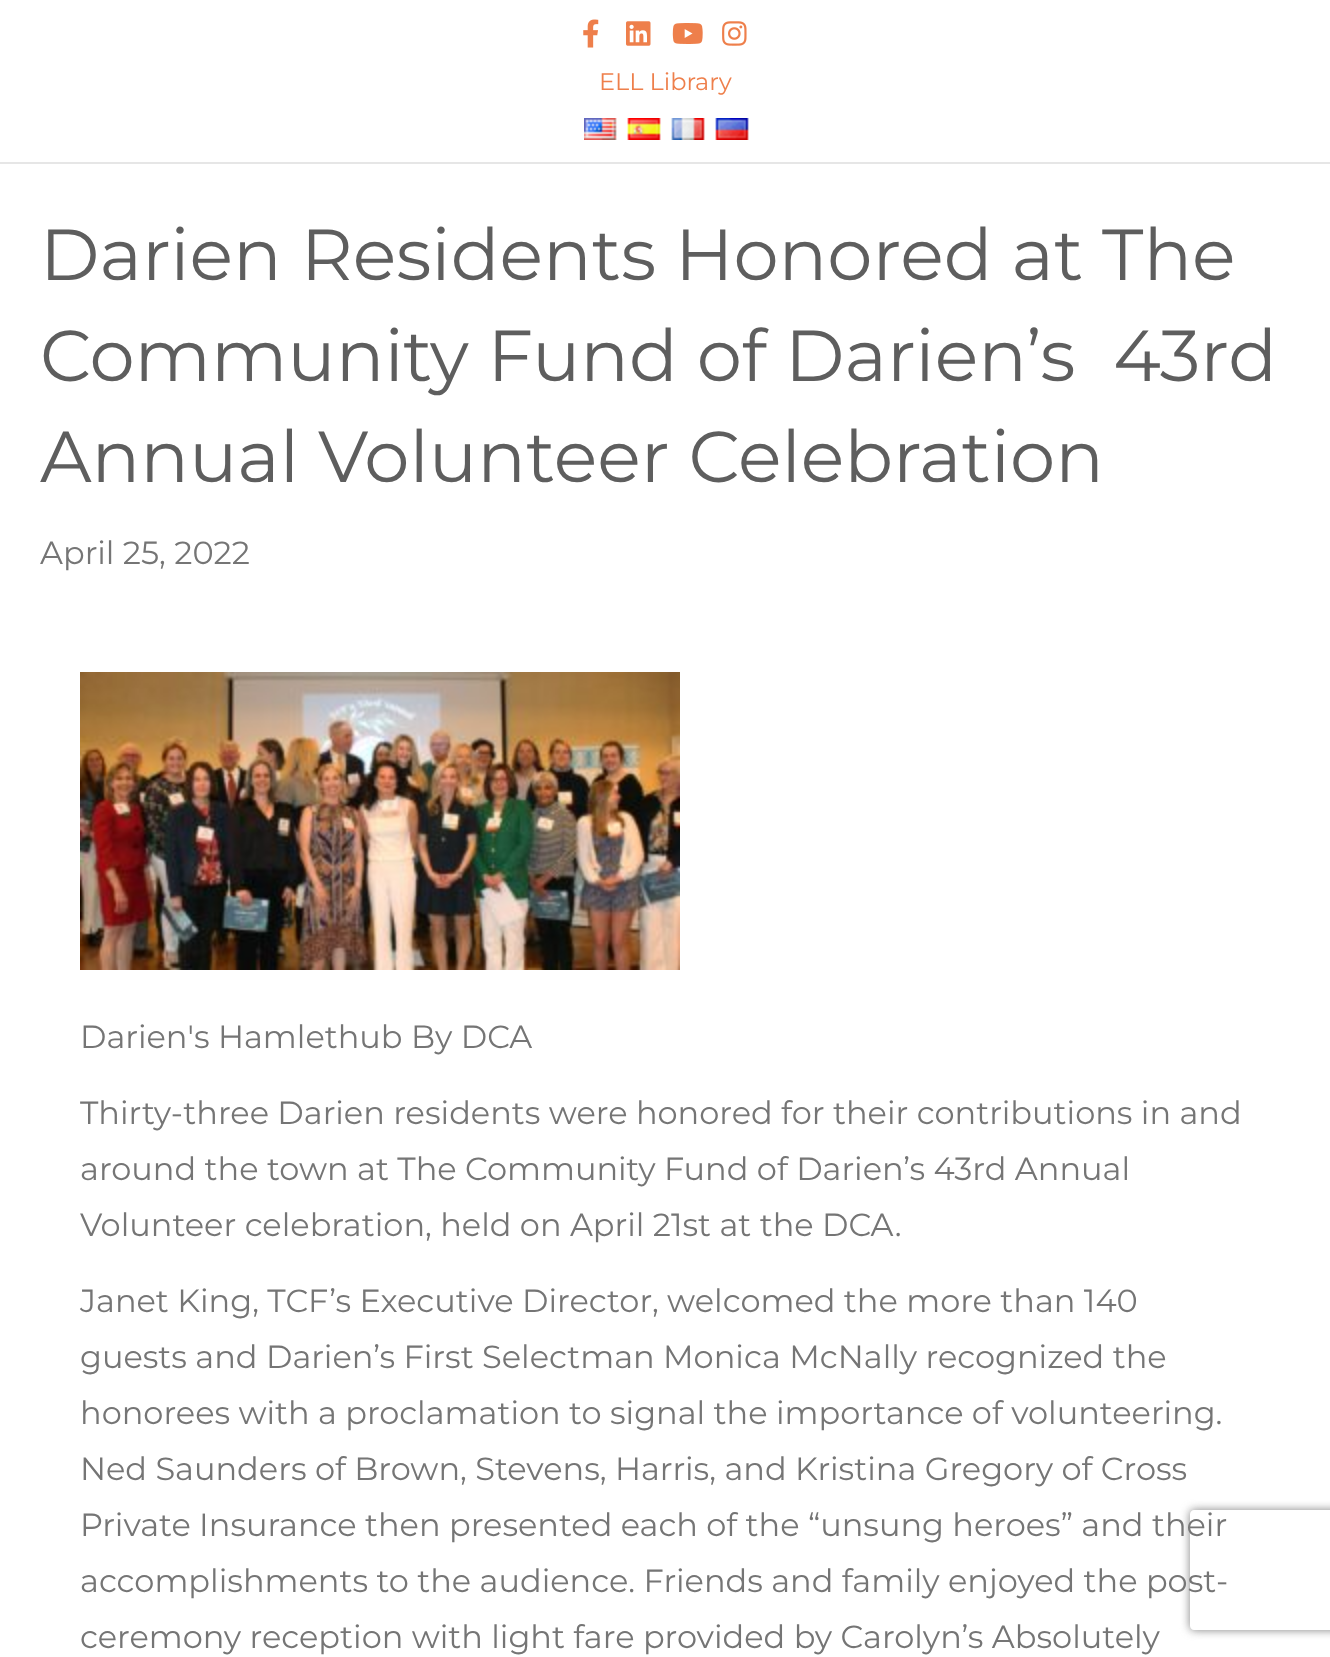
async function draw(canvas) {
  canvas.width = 1330;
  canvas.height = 1657;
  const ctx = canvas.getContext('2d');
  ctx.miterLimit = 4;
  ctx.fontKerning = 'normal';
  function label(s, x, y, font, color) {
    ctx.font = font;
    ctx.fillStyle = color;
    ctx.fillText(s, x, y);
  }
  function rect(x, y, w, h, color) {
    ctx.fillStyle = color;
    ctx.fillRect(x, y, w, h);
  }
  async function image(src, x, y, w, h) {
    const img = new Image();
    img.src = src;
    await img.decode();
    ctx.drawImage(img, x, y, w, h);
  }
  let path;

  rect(0, 0, 1330, 1657, '#fff');
  rect(0, 162, 1330, 2, '#e6e6e6');
  await image('assets/img1.png', 583, 19, 16, 29);
  await image('assets/img2.png', 626, 21, 25, 25);
  await image('assets/img3.png', 672, 23, 31, 21);
  await image('assets/img4.png', 722, 21, 25, 25);
  label('ELL Library', 599, 90, '24px Montserrat', '#ee7f4b');
  await image('assets/img5.png', 584, 118, 33, 22);
  await image('assets/img6.png', 627, 118, 34, 22);
  await image('assets/img7.png', 671, 118, 34, 22);
  await image('assets/img8.png', 715, 118, 34, 22);
  label('Darien Residents Honored at The', 40, 280, '72px Montserrat', '#5e5e5e');
  label('Community Fund of Darien’s  43rd', 40, 381, '72px Montserrat', '#5e5e5e');
  label('Annual Volunteer Celebration', 40, 482, '72px Montserrat', '#5e5e5e');
  label('April 25, 2022', 40, 564, '32px Montserrat', '#757575');
  await image('assets/img9.png', 80, 672, 600, 298);
  label('Darien\'s Hamlethub By DCA', 80, 1048, '32px Montserrat', '#757575');
  label('Thirty-three Darien residents were honored for their contributions in and', 80, 1124, '32px Montserrat', '#757575');
  label('around the town at The Community Fund of Darien’s 43rd Annual', 80, 1180, '32px Montserrat', '#757575');
  label('Volunteer celebration, held on April 21st at the DCA.', 80, 1236, '32px Montserrat', '#757575');
  label('Janet King, TCF’s Executive Director, welcomed the more than 140', 80, 1312, '32px Montserrat', '#757575');
  label('guests and Darien’s First Selectman Monica McNally recognized the', 80, 1368, '32px Montserrat', '#757575');
  label('honorees with a proclamation to signal the importance of volunteering.', 80, 1424, '32px Montserrat', '#757575');
  label('Ned Saunders of Brown, Stevens, Harris, and Kristina Gregory of Cross', 80, 1480, '32px Montserrat', '#757575');
  label('Private Insurance then presented each of the “unsung heroes” and their', 80, 1536, '32px Montserrat', '#757575');
  label('accomplishments to the audience. Friends and family enjoyed the post-', 80, 1592, '32px Montserrat', '#757575');
  label('ceremony reception with light fare provided by Carolyn’s Absolutely', 80, 1648, '32px Montserrat', '#757575');
  ctx.save();
  path = new Path2D('M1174 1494H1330V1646H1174ZM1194 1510H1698C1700 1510 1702 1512 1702 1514V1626C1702 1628 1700 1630 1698 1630H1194C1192 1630 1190 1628 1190 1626V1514C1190 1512 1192 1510 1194 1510Z');
  ctx.clip(path, 'evenodd');
  ctx.fillStyle = '#808080';
  ctx.filter = 'blur(5px)';
  ctx.beginPath();
  ctx.roundRect(1190, 1510, 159, 120, 4);
  ctx.fill();
  ctx.filter = 'none';
  ctx.restore();
}

draw(document.querySelector('canvas'));
